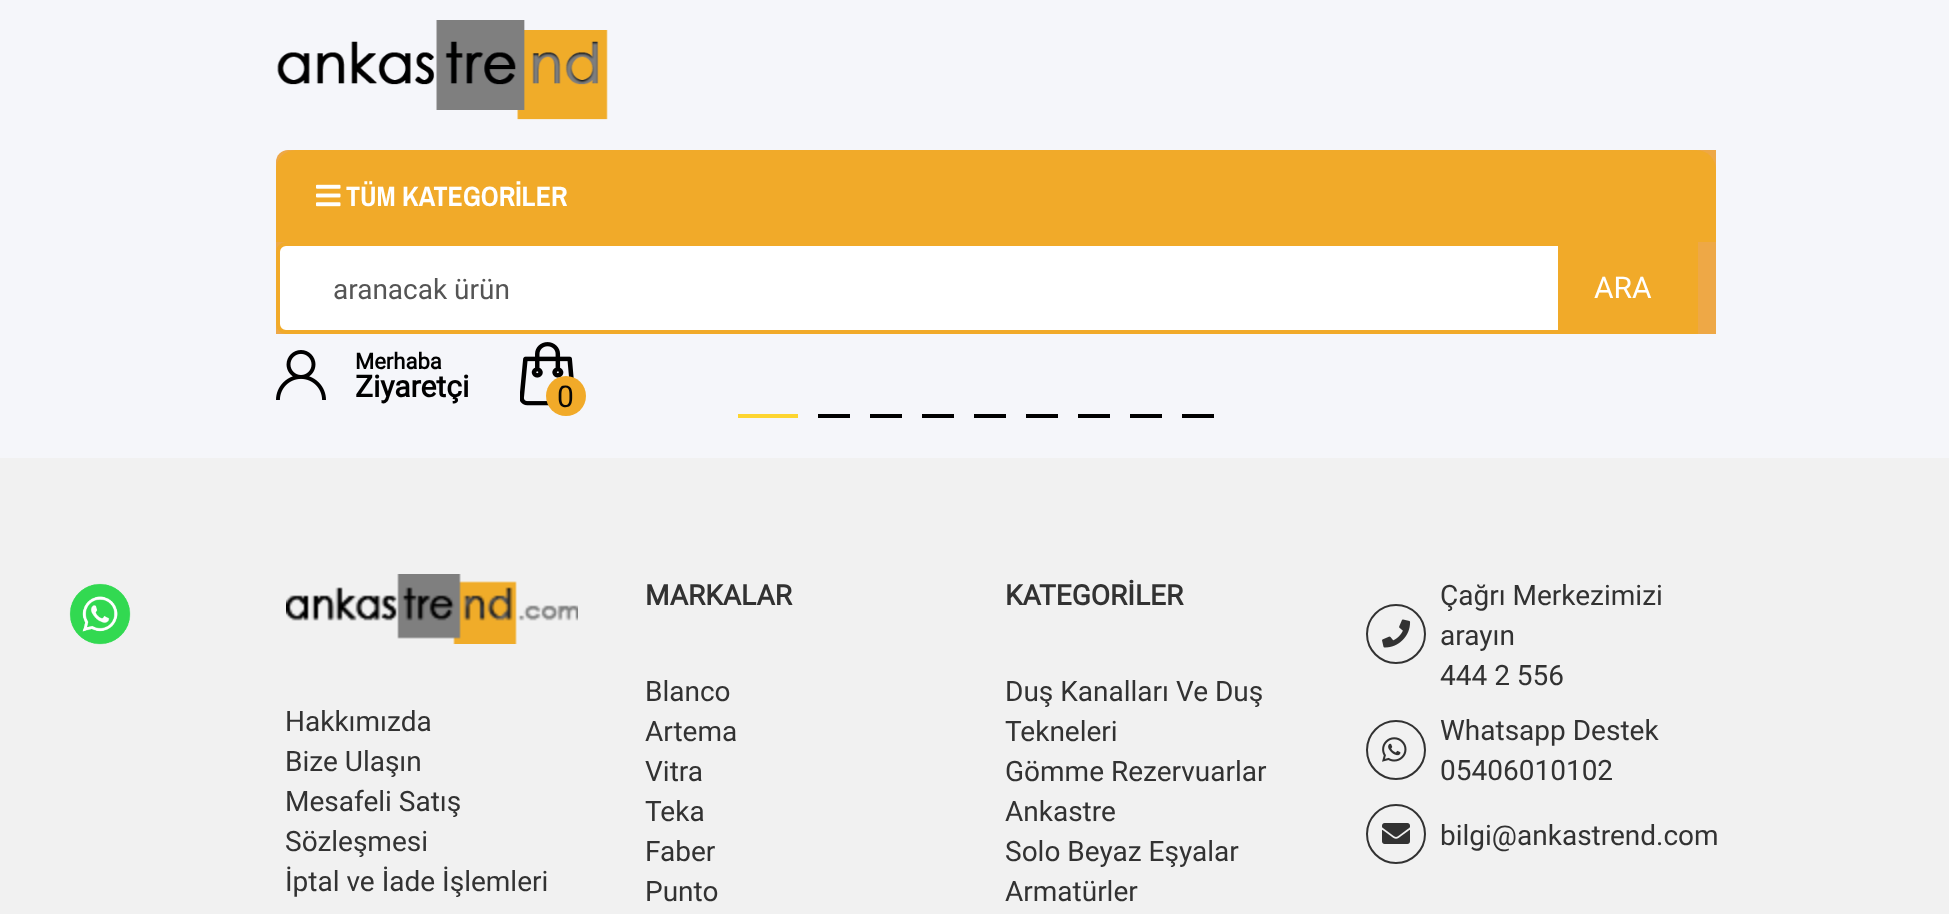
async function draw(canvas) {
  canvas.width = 1949;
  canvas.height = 914;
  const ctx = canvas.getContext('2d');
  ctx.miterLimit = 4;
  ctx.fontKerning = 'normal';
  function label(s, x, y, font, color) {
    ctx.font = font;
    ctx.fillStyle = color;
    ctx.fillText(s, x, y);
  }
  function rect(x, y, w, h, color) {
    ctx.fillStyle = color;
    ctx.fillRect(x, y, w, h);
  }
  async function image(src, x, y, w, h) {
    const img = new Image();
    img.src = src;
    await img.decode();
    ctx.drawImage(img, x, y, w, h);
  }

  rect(0, 0, 1949, 914, '#f5f6fa');
  await image('assets/img1.png', 277, 20, 331, 100);
  ctx.fillStyle = '#eea846';
  ctx.beginPath();
  ctx.roundRect(276, 150, 1440, 184, [12, 0, 0, 0]);
  ctx.fill();
  ctx.fillStyle = '#f1aa29';
  ctx.beginPath();
  ctx.roundRect(276, 150, 1440, 92, [20, 20, 0, 0]);
  ctx.fill();
  await image('assets/img2.png', 316, 184, 25, 23);
  label('TÜM KATEGORİLER', 346, 206, 'bold 28px Archivo Narrow', '#fff');
  ctx.beginPath();
  ctx.roundRect(278, 244, 1406, 88, 8);
  ctx.fill();
  ctx.strokeStyle = '#f1aa29';
  ctx.lineWidth = 4;
  ctx.stroke();
  label('aranacak ürün', 333, 299, '28px Roboto', '#555');
  rect(1558, 242, 140, 92, '#f1aa29');
  label('ARA', 1594, 298, '30px Roboto', '#fff');
  await image('assets/img3.png', 276, 350, 50, 50);
  label('Merhaba', 355, 369, 'bold 22px Roboto', '#000');
  label('Ziyaretçi', 355, 397, 'bold 30px Roboto', '#000');
  await image('assets/img4.png', 520, 342, 54, 64);
  ctx.fillStyle = '#f1aa29';
  ctx.beginPath();
  ctx.arc(566, 396, 20, 0, 2 * Math.PI);
  ctx.fill();
  label('0', 557, 407, '30px Roboto', '#070707');
  rect(738, 414, 60, 4, '#fdd530');
  rect(818, 414, 32, 4, '#000');
  rect(870, 414, 32, 4, '#000');
  rect(922, 414, 32, 4, '#000');
  rect(974, 414, 32, 4, '#000');
  rect(1026, 414, 32, 4, '#000');
  rect(1078, 414, 32, 4, '#000');
  rect(1130, 414, 32, 4, '#000');
  rect(1182, 414, 32, 4, '#000');
  rect(0, 458, 1949, 456, '#f1f1f1');
  await image('assets/img5.png', 69, 583, 62, 62);
  await image('assets/img6.png', 286, 574, 292, 70);
  label('Hakkımızda', 285, 731, '28px Roboto', '#323232');
  label('Bize Ulaşın', 285, 771, '28px Roboto', '#323232');
  label('Mesafeli Satış', 285, 811, '28px Roboto', '#323232');
  label('Sözleşmesi', 285, 851, '28px Roboto', '#323232');
  label('İptal ve İade İşlemleri', 285, 891, '28px Roboto', '#323232');
  label('MARKALAR', 645, 605, 'bold 28px Roboto', '#323232');
  label('Blanco', 645, 701, '28px Roboto', '#323232');
  label('Artema', 645, 741, '28px Roboto', '#323232');
  label('Vitra', 645, 781, '28px Roboto', '#323232');
  label('Teka', 645, 821, '28px Roboto', '#323232');
  label('Faber', 645, 861, '28px Roboto', '#323232');
  label('Punto', 645, 901, '28px Roboto', '#323232');
  label('KATEGORİLER', 1005, 605, 'bold 28px Roboto', '#323232');
  label('Duş Kanalları Ve Duş', 1005, 701, '28px Roboto', '#323232');
  label('Tekneleri', 1005, 741, '28px Roboto', '#323232');
  label('Gömme Rezervuarlar', 1005, 781, '28px Roboto', '#323232');
  label('Ankastre', 1005, 821, '28px Roboto', '#323232');
  label('Solo Beyaz Eşyalar', 1005, 861, '28px Roboto', '#323232');
  label('Armatürler', 1005, 901, '28px Roboto', '#323232');
  ctx.beginPath();
  ctx.arc(1396, 634, 29, 0, 2 * Math.PI);
  ctx.strokeStyle = '#323232';
  ctx.lineWidth = 2;
  ctx.stroke();
  await image('assets/img7.png', 1382, 619, 29, 29);
  label('Çağrı Merkezimizi', 1440, 605, '28px Roboto', '#323232');
  label('arayın', 1440, 645, '28px Roboto', '#323232');
  label('444 2 556', 1440, 685, '28px Roboto', '#323232');
  ctx.beginPath();
  ctx.arc(1396, 750, 29, 0, 2 * Math.PI);
  ctx.stroke();
  await image('assets/img8.png', 1382, 737, 25, 25);
  label('Whatsapp Destek', 1440, 740, '28px Roboto', '#323232');
  label('05406010102', 1440, 780, '28px Roboto', '#323232');
  ctx.beginPath();
  ctx.arc(1396, 834, 29, 0, 2 * Math.PI);
  ctx.stroke();
  await image('assets/img9.png', 1382, 823, 28, 21);
  label('bilgi@ankastrend.com', 1440, 845, '28px Roboto', '#323232');
}

draw(document.querySelector('canvas'));
